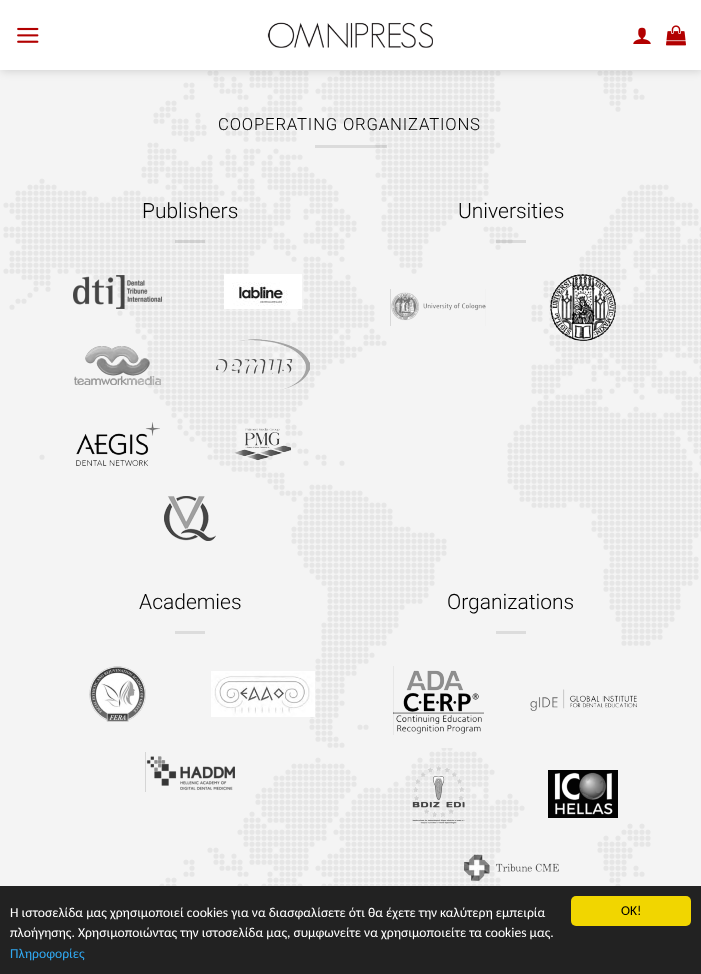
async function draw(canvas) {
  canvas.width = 701;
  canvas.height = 974;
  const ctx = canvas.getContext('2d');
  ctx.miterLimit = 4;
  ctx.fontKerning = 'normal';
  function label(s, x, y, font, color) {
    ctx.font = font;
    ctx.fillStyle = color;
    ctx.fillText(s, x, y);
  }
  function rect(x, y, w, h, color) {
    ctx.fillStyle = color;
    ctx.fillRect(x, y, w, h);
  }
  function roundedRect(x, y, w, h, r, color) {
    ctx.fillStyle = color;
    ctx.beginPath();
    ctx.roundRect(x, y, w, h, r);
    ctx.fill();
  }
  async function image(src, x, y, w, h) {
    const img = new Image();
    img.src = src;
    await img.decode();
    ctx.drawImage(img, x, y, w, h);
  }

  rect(0, 0, 701, 974, '#f4f4f4');
  await image('assets/img5.png', 3, 70, 698, 816);
  ctx.fillStyle = '#00000026';
  ctx.filter = 'blur(5px)';
  ctx.beginPath();
  ctx.rect(1, 1, 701, 70);
  ctx.fill();
  ctx.filter = 'none';
  rect(0, 0, 701, 70, '#fff');
  await image('assets/img1.png', 17, 27, 22, 16);
  await image('assets/img2.png', 267, 22, 166, 26);
  await image('assets/img3.png', 633, 27, 18, 17);
  await image('assets/img4.png', 666, 25, 20, 21);
  ctx.letterSpacing = '0.8px';
  label('COOPERATING ORGANIZATIONS', 218, 130, '300 16.75px Roboto', '#000');
  rect(315, 145, 72, 3, '#0000001a');
  ctx.letterSpacing = '0px';
  label('Publishers', 142, 218, '300 21px Roboto', '#000');
  rect(175, 240, 30, 3, '#0000001a');
  await image('assets/img6.png', 73, 275, 89, 34);
  await image('assets/img7.png', 224, 274, 78, 35);
  await image('assets/img8.png', 74, 346, 87, 39);
  await image('assets/img9.png', 216, 339, 94, 51);
  await image('assets/img10.png', 76, 422, 84, 44);
  await image('assets/img11.png', 234, 428, 57, 33);
  await image('assets/img12.png', 164, 496, 52, 45);
  label('Universities', 458, 218, '300 21px Roboto', '#000');
  rect(496, 240, 30, 3, '#0000001a');
  await image('assets/img13.png', 390, 289, 96, 37);
  await image('assets/img14.png', 550, 274, 66, 67);
  label('Academies', 139, 609, '300 21px Roboto', '#000');
  rect(175, 631, 30, 3, '#dcdcdc');
  await image('assets/img15.png', 89, 666, 57, 56);
  await image('assets/img16.png', 211, 671, 104, 46);
  await image('assets/img17.png', 145, 752, 90, 40);
  label('Organizations', 447, 609, '300 21px Roboto', '#000');
  rect(496, 631, 30, 3, '#dcdcdc');
  await image('assets/img18.png', 393, 666, 91, 69);
  await image('assets/img19.png', 530, 689, 107, 22);
  await image('assets/img20.png', 412, 766, 53, 58);
  await image('assets/img21.png', 548, 770, 70, 48);
  await image('assets/img22.png', 464, 854, 95, 27);
  rect(0, 886, 701, 88, '#222');
  label('Η ιστοσελίδα μας χρησιμοποιεί cookies για να διασφαλίσετε ότι θα έχετε την καλύτερη εμπειρία', 10, 917, '13.6px Carlito', '#fff');
  label('πλοήγησης. Χρησιμοποιώντας την ιστοσελίδα μας, συμφωνείτε να χρησιμοποιείτε τα cookies μας.', 10, 937, '13.6px Carlito', '#fff');
  label('Πληροφορίες', 10, 958, '13.6px Carlito', '#31a8f0');
  roundedRect(571, 896, 120, 30, 5, '#f1d600');
  label('OK!', 621, 915, '13.6px Carlito', '#000');
}

draw(document.querySelector('canvas'));
